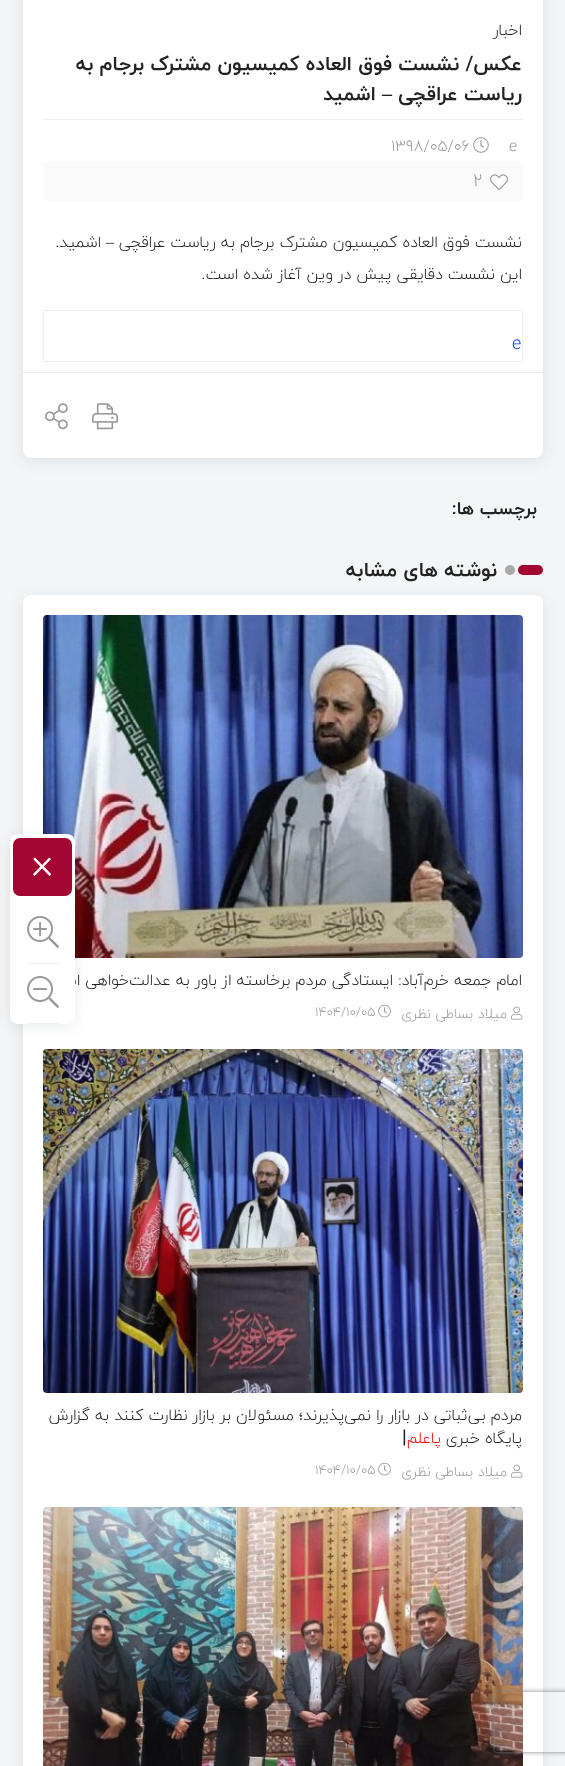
async function draw(canvas) {
  canvas.width = 565;
  canvas.height = 1766;
  const ctx = canvas.getContext('2d');
  ctx.miterLimit = 4;
  ctx.fontKerning = 'normal';
  function label(s, x, y, font, color) {
    ctx.font = font;
    ctx.fillStyle = color;
    ctx.fillText(s, x, y);
  }
  function rect(x, y, w, h, color) {
    ctx.fillStyle = color;
    ctx.fillRect(x, y, w, h);
  }
  function roundedRect(x, y, w, h, r, color) {
    ctx.fillStyle = color;
    ctx.beginPath();
    ctx.roundRect(x, y, w, h, r);
    ctx.fill();
  }
  async function image(src, x, y, w, h) {
    const img = new Image();
    img.src = src;
    await img.decode();
    ctx.drawImage(img, x, y, w, h);
  }
  let path;

  rect(0, 0, 565, 1766, '#f3f5f7');
  ctx.fillStyle = '#293a3a1a';
  ctx.filter = 'blur(7.5px)';
  ctx.beginPath();
  ctx.roundRect(23, -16, 520, 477, 8);
  ctx.fill();
  ctx.filter = 'none';
  roundedRect(23, -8, 520, 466, 8, '#fff');
  ctx.direction = 'rtl';
  label('اخبار', 522, 35, '300 16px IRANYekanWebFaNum', '#222');
  label('عکس/ نشست فوق العاده کمیسیون مشترک برجام به', 522, 70, 'bold 20px IRANYekanWebFaNum', '#222');
  label('ریاست عراقچى', 522, 100, 'bold 20px IRANYekanWebFaNum', '#222');
  label('–', 392, 100, 'bold 20px Liberation Serif', '#222');
  label('اشمید', 376, 100, 'bold 20px IRANYekanWebFaNum', '#222');
  rect(43, 119, 480, 1, '#ededed');
  ctx.direction = 'ltr';
  label('e', 509, 151, '300 16px IRANYekanWebFaNum', '#999');
  await image('assets/img1.png', 473, 137, 16, 16);
  label('۱۳۹۸/۰۵/۰۶', 391, 151, '300 16px IRANYekanWebFaNum', '#999');
  roundedRect(43, 162, 480, 39, 4, '#fafafa');
  await image('assets/img2.png', 490, 174, 18, 16);
  label('۲', 473, 186, '300 18px IRANYekanWebFaNum', '#999');
  ctx.direction = 'rtl';
  label('نشست فوق العاده کمیسیون مشترک برجام به ریاست عراقچى', 522, 247, '300 16px IRANYekanWebFaNum', '#222');
  label('–', 114, 247, '16px Liberation Serif', '#222');
  label('اشمید.', 101, 247, '300 16px IRANYekanWebFaNum', '#222');
  label('این نشست دقایقى پیش در وین آغاز شده است.', 522, 279, '300 16px IRANYekanWebFaNum', '#222');
  ctx.strokeStyle = '#eee';
  ctx.strokeRect(43.5, 310.5, 479, 51);
  ctx.direction = 'ltr';
  label('e', 512, 349, '300 18px IRANYekanWebFaNum', '#063ee8');
  rect(23, 372, 520, 1, '#eaeaea');
  await image('assets/img3.png', 92, 403, 26, 27);
  await image('assets/img4.png', 45, 403, 23, 27);
  ctx.direction = 'rtl';
  label('برچسب ها:', 537, 514, 'bold 18px IRANYekanWebFaNum', '#222');
  ctx.fillStyle = '#293a3a1a';
  ctx.filter = 'blur(7.5px)';
  ctx.beginPath();
  ctx.roundRect(23, 598, 520, 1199, 8);
  ctx.fill();
  ctx.filter = 'none';
  roundedRect(518, 565, 25, 10, 5, '#a30630');
  ctx.fillStyle = '#aaa';
  ctx.beginPath();
  ctx.arc(510, 570, 5, 0, 2 * Math.PI);
  ctx.fill();
  label('نوشته های مشابه', 497, 576, 'bold 20px IRANYekanWebFaNum', '#222');
  roundedRect(23, 595, 520, 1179, 8, '#fff');
  await image('assets/img5.png', 43, 615, 480, 343);
  label('امام جمعه خرم‌آباد: ایستادگی مردم برخاسته از باور به عدالت‌خواهی است', 522, 985, '300 16px IRANYekanWebFaNum', '#222');
  await image('assets/img6.png', 511, 1006, 12, 14);
  label('میلاد بساطی نظری', 507, 1018, '300 14px IRANYekanWebFaNum', '#999');
  await image('assets/img7.png', 378, 1004, 13, 14);
  ctx.direction = 'ltr';
  label('۱۴۰۴/۱۰/۰۵', 315, 1016, '300 13px IRANYekanWebFaNum', '#999');
  await image('assets/img8.png', 43, 1049, 480, 344);
  ctx.direction = 'rtl';
  label('مردم بی‌ثباتی در بازار را نمی‌پذیرند؛ مسئولان بر بازار نظارت کنند به گزارش', 522, 1420, '300 16px IRANYekanWebFaNum', '#222');
  label('پایگاه خبری', 522, 1443, '300 16px IRANYekanWebFaNum', '#222');
  label('پاعلم', 441, 1443, '300 16px IRANYekanWebFaNum', '#f00');
  ctx.direction = 'ltr';
  label('|', 402, 1443, 'bold 19px IRANYekanWebFaNum', '#222');
  await image('assets/img6.png', 511, 1464, 12, 14);
  ctx.direction = 'rtl';
  label('میلاد بساطی نظری', 507, 1476, '300 14px IRANYekanWebFaNum', '#999');
  await image('assets/img7.png', 378, 1462, 13, 14);
  ctx.direction = 'ltr';
  label('۱۴۰۴/۱۰/۰۵', 315, 1474, '300 13px IRANYekanWebFaNum', '#999');
  await image('assets/img9.png', 43, 1507, 480, 259);
  ctx.fillStyle = '#293a3a1a';
  ctx.filter = 'blur(7.5px)';
  ctx.beginPath();
  ctx.roundRect(10, 837, 65, 190, 8);
  ctx.fill();
  ctx.filter = 'none';
  roundedRect(10, 834, 65, 190, 8, '#fff');
  roundedRect(13, 838, 59, 58, 7, '#a30630');
  label('×', 31, 878, '300 43px IRANYekanWebFaNum', '#fff');
  rect(27, 963, 32, 1, '#eee');
  await image('assets/img10.png', 27, 916, 32, 32);
  rect(27, 1023, 32, 1, '#eee');
  await image('assets/img11.png', 27, 976, 32, 32);
  ctx.save();
  path = new Path2D('M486 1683H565V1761H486ZM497 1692H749C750 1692 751 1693 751 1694V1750C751 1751 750 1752 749 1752H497C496 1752 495 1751 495 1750V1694C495 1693 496 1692 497 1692Z');
  ctx.clip(path, 'evenodd');
  ctx.fillStyle = '#808080';
  ctx.filter = 'blur(2.5px)';
  ctx.beginPath();
  ctx.roundRect(495, 1692, 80, 60, 2);
  ctx.fill();
  ctx.filter = 'none';
  ctx.restore();
}

draw(document.querySelector('canvas'));
